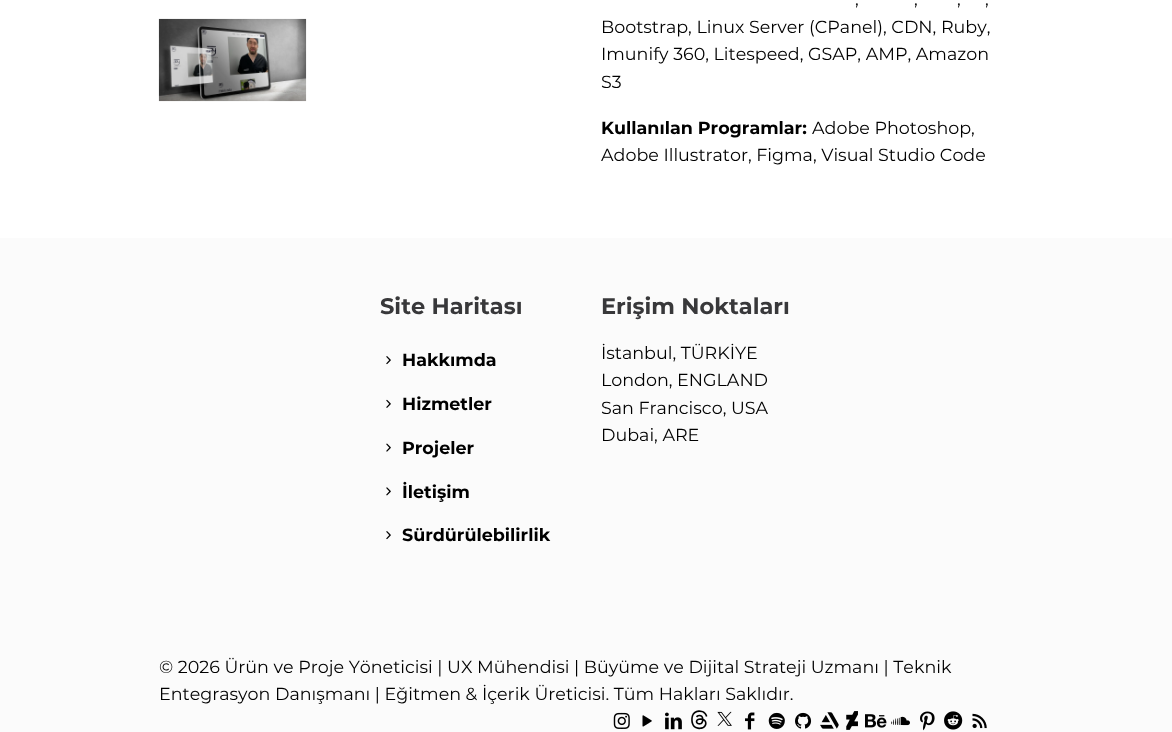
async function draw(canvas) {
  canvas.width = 1172;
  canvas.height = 732;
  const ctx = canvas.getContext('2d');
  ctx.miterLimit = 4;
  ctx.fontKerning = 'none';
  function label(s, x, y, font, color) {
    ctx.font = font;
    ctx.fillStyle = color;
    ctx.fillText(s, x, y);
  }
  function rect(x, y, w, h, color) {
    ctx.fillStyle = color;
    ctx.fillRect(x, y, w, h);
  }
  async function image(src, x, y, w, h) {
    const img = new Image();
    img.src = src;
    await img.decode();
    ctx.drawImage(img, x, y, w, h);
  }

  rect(0, 0, 1172, 732, '#fff');
  await image('assets/img1.png', 158, 18, 149, 84);
  label(',', 855, 5, '100 17.5px Montserrat', '#000');
  label(',', 914, 5, '100 17.5px Montserrat', '#000');
  label(',', 957, 5, '100 17.5px Montserrat', '#000');
  label(',', 985, 5, '100 17.5px Montserrat', '#000');
  label('Bootstrap, Linux Server (CPanel), CDN, Ruby,', 601, 33, '100 17.5px Montserrat', '#000');
  label('Imunify 360, Litespeed, GSAP, AMP, Amazon', 601, 60, '100 17.5px Montserrat', '#000');
  label('S3', 601, 88, '100 17.5px Montserrat', '#000');
  label('Kullanılan Programlar:', 601, 134, '100 17.5px "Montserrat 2"', '#000');
  label('Adobe Photoshop,', 812, 134, '100 17.5px Montserrat', '#000');
  label('Adobe Illustrator, Figma, Visual Studio Code', 601, 161, '100 17.5px Montserrat', '#000');
  rect(0, 238, 1172, 494, '#fbfbfb');
  label('Site Haritası', 380, 314, '100 22.5px "Montserrat 2"', '#38383a');
  await image('assets/img2.png', 386, 356, 5, 9);
  label('Hakkımda', 402, 366, '100 17.5px "Montserrat 2"', '#000');
  await image('assets/img3.png', 386, 399, 5, 9);
  label('Hizmetler', 402, 410, '100 17.5px "Montserrat 2"', '#000');
  await image('assets/img4.png', 386, 443, 5, 9);
  label('Projeler', 402, 454, '100 17.5px "Montserrat 2"', '#000');
  await image('assets/img5.png', 386, 487, 5, 9);
  label('İletişim', 402, 498, '100 17.5px "Montserrat 2"', '#000');
  await image('assets/img2.png', 386, 531, 5, 9);
  label('Sürdürülebilirlik', 402, 541, '100 17.5px "Montserrat 2"', '#000');
  label('Erişim Noktaları', 601, 314, '100 22.5px "Montserrat 2"', '#38383a');
  label('İstanbul, TÜRKİYE', 601, 359, '100 17.5px Montserrat', '#000');
  label('London, ENGLAND', 601, 386, '100 17.5px Montserrat', '#000');
  label('San Francisco, USA', 601, 414, '100 17.5px Montserrat', '#000');
  label('Dubai, ARE', 601, 441, '100 17.5px Montserrat', '#000');
  label('© 2026 Ürün ve Proje Yöneticisi | UX Mühendisi | Büyüme ve Dijital Strateji Uzmanı | Teknik', 159, 673, '100 17.5px Montserrat', '#000');
  label('Entegrasyon Danışmanı | Eğitmen & İçerik Üreticisi. Tüm Hakları Saklıdır.', 159, 700, '100 17.5px Montserrat', '#000');
  await image('assets/img6.png', 613, 712, 17, 17);
  await image('assets/img7.png', 642, 715, 10, 12);
  await image('assets/img8.png', 665, 712, 17, 18);
  label('󩀀', 691, 728, '19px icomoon', '#000');
  await image('assets/img9.png', 717, 711, 15, 15);
  await image('assets/img10.png', 745, 712, 10, 18);
  await image('assets/img11.png', 768, 712, 17, 17);
  await image('assets/img12.png', 795, 712, 17, 17);
  await image('assets/img13.png', 820, 712, 19, 17);
  await image('assets/img14.png', 846, 711, 12, 19);
  await image('assets/img15.png', 865, 714, 22, 14);
  await image('assets/img16.png', 891, 716, 19, 10);
  await image('assets/img17.png', 920, 711, 15, 20);
  await image('assets/img18.png', 944, 711, 19, 19);
  await image('assets/img19.png', 972, 713, 15, 16);
}

draw(document.querySelector('canvas'));
